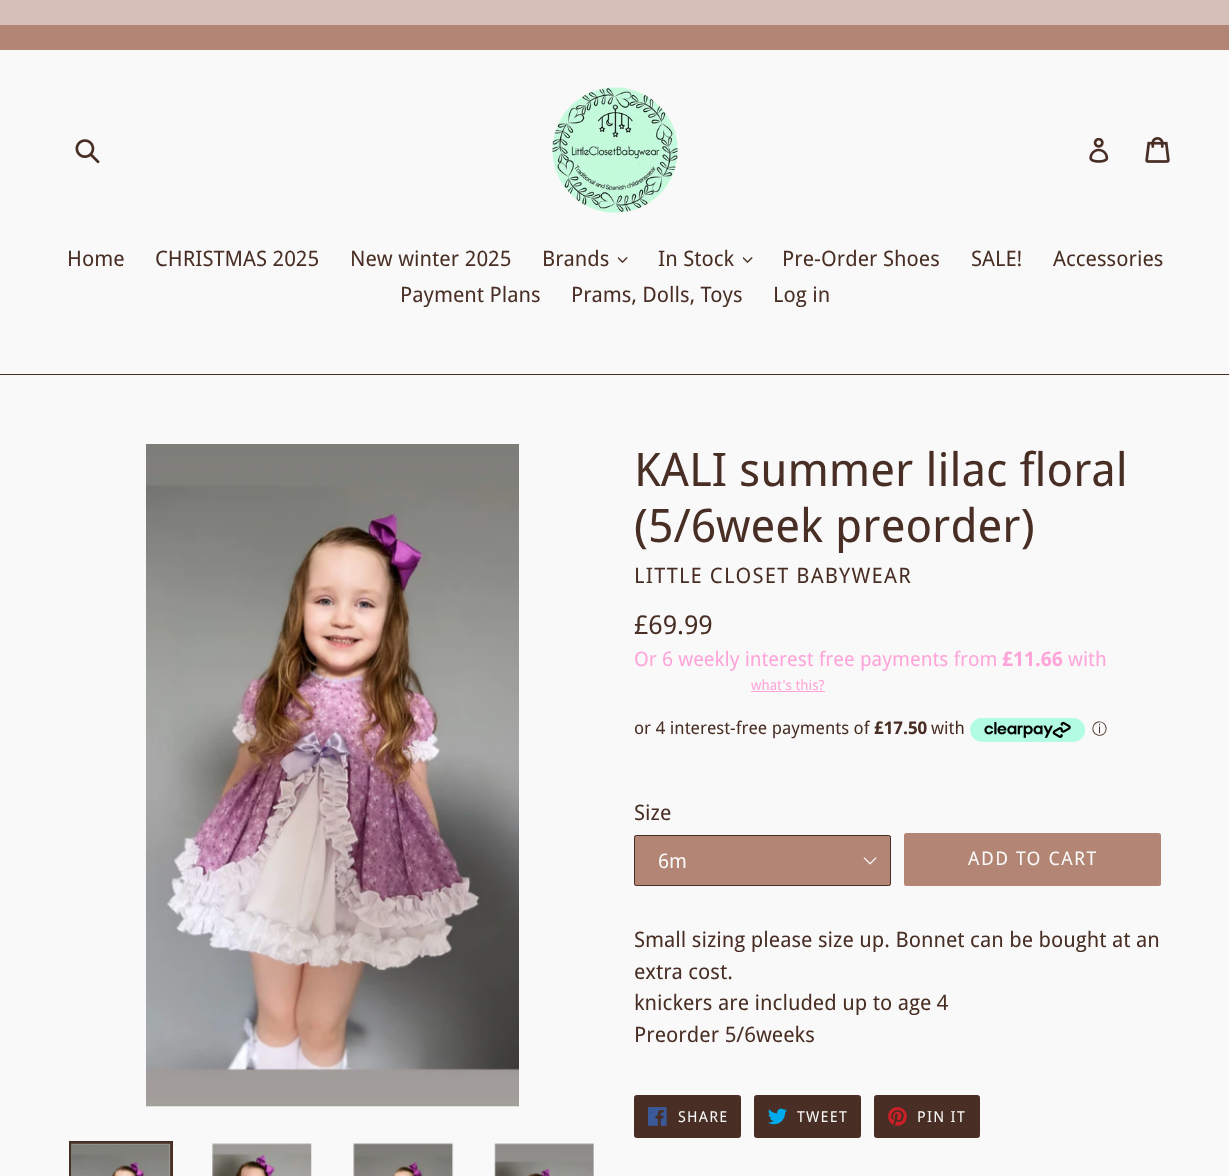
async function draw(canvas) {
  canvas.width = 1229;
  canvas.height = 1176;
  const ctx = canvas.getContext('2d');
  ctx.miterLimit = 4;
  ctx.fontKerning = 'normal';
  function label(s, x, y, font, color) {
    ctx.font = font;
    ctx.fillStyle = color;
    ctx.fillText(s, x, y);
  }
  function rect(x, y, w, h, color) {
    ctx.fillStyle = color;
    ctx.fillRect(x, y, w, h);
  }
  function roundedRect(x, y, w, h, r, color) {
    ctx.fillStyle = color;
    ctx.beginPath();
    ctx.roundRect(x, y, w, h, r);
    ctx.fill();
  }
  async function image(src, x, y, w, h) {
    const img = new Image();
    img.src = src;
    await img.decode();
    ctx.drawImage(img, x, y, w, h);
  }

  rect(0, 0, 1229, 1176, '#f9f9f9');
  rect(0, 0, 1229, 25, '#d6bfb7');
  rect(0, 25, 1229, 25, '#b38574');
  await image('assets/img1.png', 75, 139, 25, 25);
  await image('assets/img2.png', 552, 87, 126, 126);
  await image('assets/img3.png', 1089, 138, 20, 25);
  await image('assets/img4.png', 1145, 137, 25, 26);
  rect(0, 374, 1229, 1, '#482e24');
  label('Home', 67, 266, '21.25px Droid Sans', '#482e24');
  label('CHRISTMAS 2025', 155, 266, '21.25px Droid Sans', '#482e24');
  label('New winter 2025', 350, 266, '21.25px Droid Sans', '#482e24');
  label('Brands', 542, 266, '21.25px Droid Sans', '#482e24');
  await image('assets/img5.png', 618, 257, 10, 6);
  label('In Stock', 658, 266, '21.25px Droid Sans', '#482e24');
  await image('assets/img5.png', 743, 257, 10, 6);
  label('Pre-Order Shoes', 782, 266, '21.25px Droid Sans', '#482e24');
  label('SALE!', 971, 266, '21.25px Droid Sans', '#482e24');
  label('Accessories', 1053, 266, '21.25px Droid Sans', '#482e24');
  label('Payment Plans', 400, 302, '21.25px Droid Sans', '#482e24');
  label('Prams, Dolls, Toys', 571, 302, '21.25px Droid Sans', '#482e24');
  label('Log in', 773, 302, '21.25px Droid Sans', '#482e24');
  await image('assets/img6.png', 146, 444, 373, 663);
  ctx.strokeStyle = '#482e24';
  ctx.lineWidth = 3;
  ctx.strokeRect(70.5, 1142.5, 101, 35);
  await image('assets/img7.png', 71, 1143, 100, 33);
  await image('assets/img8.png', 212, 1143, 100, 33);
  await image('assets/img9.png', 353, 1143, 101, 33);
  await image('assets/img10.png', 494, 1143, 100, 33);
  label('KALI summer lilac floral', 634, 486, '46.25px Droid Sans', '#482e24');
  label('(5/6week preorder)', 634, 542, '46.25px Droid Sans', '#482e24');
  ctx.letterSpacing = '1.25px';
  label('LITTLE CLOSET BABYWEAR', 634, 583, '21.25px Droid Sans', '#482e24');
  ctx.letterSpacing = '0px';
  label('£69.99', 634, 634, '26px Droid Sans', '#482e24');
  label('Or 6 weekly interest free payments from', 634, 666, '20px Droid Sans', '#ffa4d9');
  label('£11.66', 1002, 666, 'bold 20px Droid Sans', '#ffa4d9');
  label('with', 1068, 666, '20px Droid Sans', '#ffa4d9');
  label('what\'s this?', 751, 690, '14px Droid Sans', '#ffa4d9');
  rect(751, 691, 74, 1, '#ffa4d9');
  label('or 4 interest-free payments of', 634, 734, '17.5px Droid Sans', '#482e24');
  label('£17.50', 874, 734, 'bold 17.5px Droid Sans', '#482e24');
  label('with', 931, 734, '17.5px Droid Sans', '#482e24');
  await image('assets/img11.png', 970, 717, 116, 25);
  label('ⓘ', 1092, 734, '500 15px WenQuanYi Zen Hei', '#482e24');
  label('Size', 634, 820, '21.25px Droid Sans', '#482e24');
  roundedRect(634, 835, 257, 51, 2.5, '#b38574');
  await image('assets/img12.png', 863, 857, 14, 8);
  ctx.beginPath();
  ctx.roundRect(634.5, 835.5, 256, 50, 2);
  ctx.lineWidth = 1;
  ctx.stroke();
  label('6m', 658, 868, '20px Droid Sans', '#f9f9f9');
  roundedRect(904, 833, 257, 53, 2.5, '#b38574');
  ctx.letterSpacing = '1.5px';
  label('ADD TO CART', 968, 865, '18.75px Droid Sans', '#f9f9f9');
  ctx.letterSpacing = '0px';
  label('Small sizing please size up. Bonnet can be bought at an', 634, 947, '21.25px Droid Sans', '#482e24');
  label('extra cost.', 634, 979, '21.25px Droid Sans', '#482e24');
  label('knickers are included up to age 4', 634, 1010, '21.25px Droid Sans', '#482e24');
  label('Preorder 5/6weeks', 634, 1042, '21.25px Droid Sans', '#482e24');
  ctx.beginPath();
  ctx.roundRect(634.5, 1095.5, 106, 42, 2);
  ctx.fill();
  ctx.stroke();
  await image('assets/img13.png', 648, 1107, 19, 19);
  ctx.letterSpacing = '1.25px';
  label('SHARE', 678, 1122, '15px Droid Sans', '#f9f9f9');
  ctx.fillStyle = '#482e24';
  ctx.beginPath();
  ctx.roundRect(754.5, 1095.5, 106, 42, 2);
  ctx.fill();
  ctx.stroke();
  await image('assets/img14.png', 768, 1108, 19, 17);
  label('TWEET', 797, 1122, '15px Droid Sans', '#f9f9f9');
  ctx.fillStyle = '#482e24';
  ctx.beginPath();
  ctx.roundRect(874.5, 1095.5, 105, 42, 2);
  ctx.fill();
  ctx.stroke();
  await image('assets/img15.png', 888, 1107, 19, 19);
  label('PIN IT', 917, 1122, '15px Droid Sans', '#f9f9f9');
}

draw(document.querySelector('canvas'));
